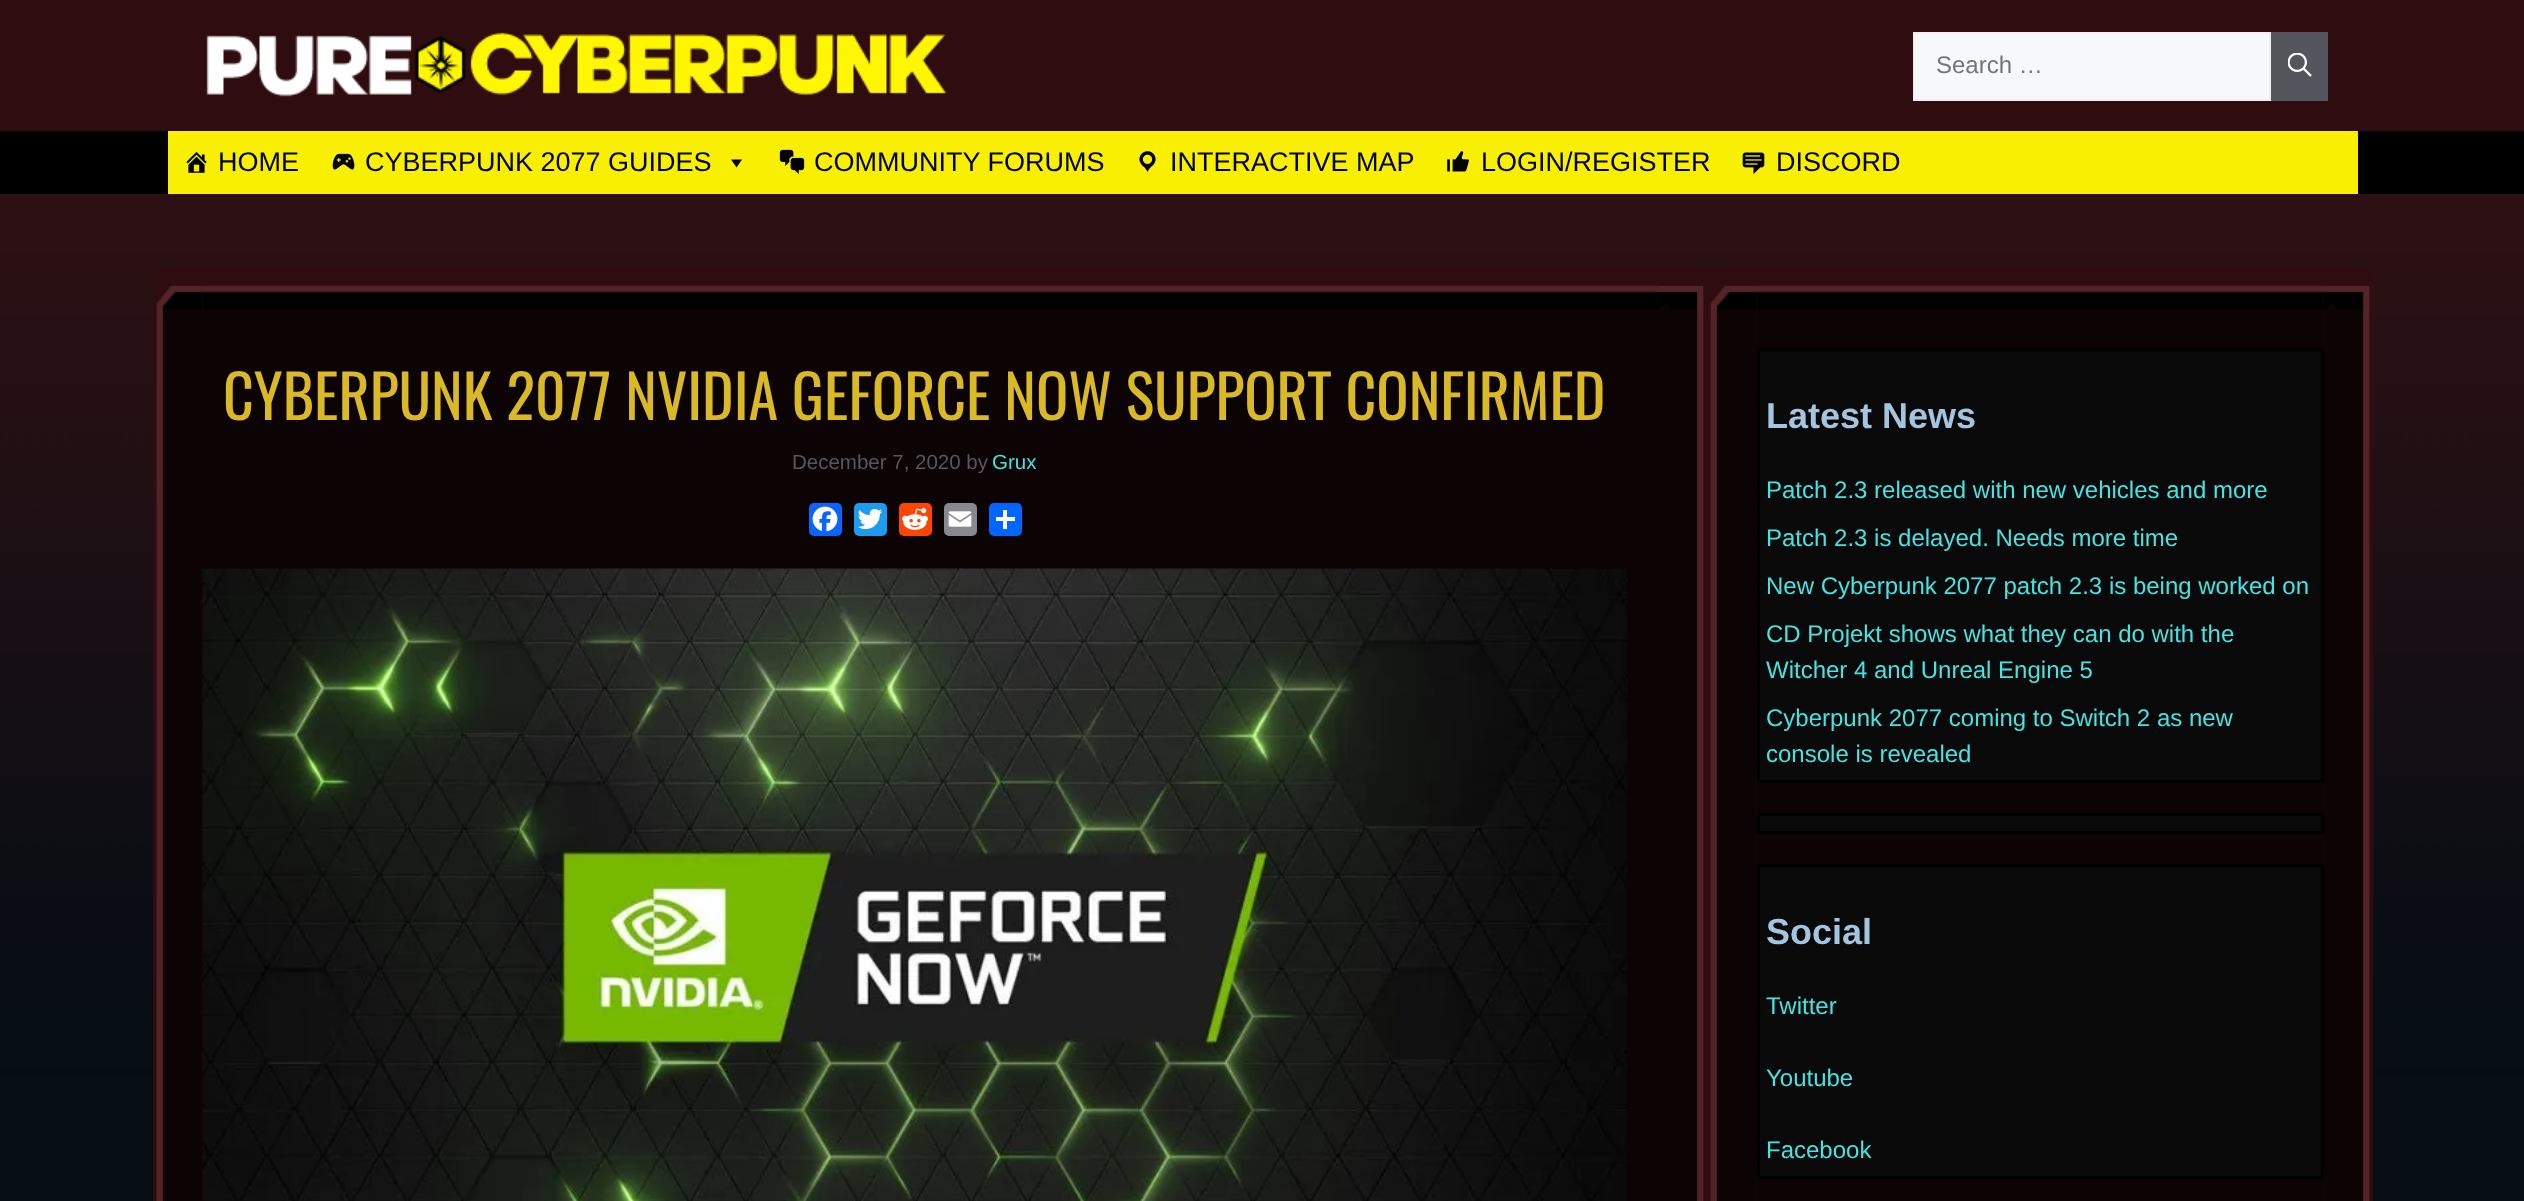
async function draw(canvas) {
  canvas.width = 2524;
  canvas.height = 1201;
  const ctx = canvas.getContext('2d');
  ctx.miterLimit = 4;
  ctx.fontKerning = 'normal';
  function label(s, x, y, font, color) {
    ctx.font = font;
    ctx.fillStyle = color;
    ctx.fillText(s, x, y);
  }
  function rect(x, y, w, h, color) {
    ctx.fillStyle = color;
    ctx.fillRect(x, y, w, h);
  }
  function roundedRect(x, y, w, h, r, color) {
    ctx.fillStyle = color;
    ctx.beginPath();
    ctx.roundRect(x, y, w, h, r);
    ctx.fill();
  }
  async function image(src, x, y, w, h) {
    const img = new Image();
    img.src = src;
    await img.decode();
    ctx.drawImage(img, x, y, w, h);
  }
  let path;

  rect(0, 0, 2524, 1201, '#fff');
  await image('assets/img1.png', 0, 194, 2524, 1007);
  rect(0, 0, 2524, 131, '#2f0c10');
  await image('assets/img2.png', 206, 32, 741, 65);
  ctx.fillStyle = '#f7f8f9';
  ctx.beginPath();
  ctx.rect(1914, 33, 356, 67);
  ctx.fill();
  ctx.strokeStyle = '#f0f0f0';
  ctx.lineWidth = 2;
  ctx.stroke();
  label('Search …', 1936, 73, '24px Liberation Sans', '#757575');
  rect(2271, 32, 57, 69, '#55555e');
  await image('assets/img3.png', 2288, 53, 24, 24);
  rect(0, 131, 2524, 63, '#000');
  rect(168, 131, 2190, 63, '#f8ef02');
  await image('assets/img4.png', 186, 152, 21, 21);
  label('HOME', 218, 171, '27px Liberation Sans', '#000');
  await image('assets/img5.png', 332, 153, 23, 17);
  label('CYBERPUNK 2077 GUIDES', 365, 171, '27px Liberation Sans', '#000');
  path = new Path2D('M742 159.5L736.5 167.5L731 159.5Z');
  ctx.fill(path);
  await image('assets/img6.png', 779, 149, 26, 25);
  label('COMMUNITY FORUMS', 814, 171, '27px Liberation Sans', '#000');
  await image('assets/img7.png', 1139, 151, 17, 21);
  label('INTERACTIVE MAP', 1170, 171, '27px Liberation Sans', '#000');
  await image('assets/img8.png', 1447, 151, 22, 21);
  label('LOGIN/REGISTER', 1481, 171, '27px Liberation Sans', '#000');
  await image('assets/img9.png', 1742, 152, 23, 22);
  label('DISCORD', 1776, 171, '27px Liberation Sans', '#000');
  rect(153, 269, 2220, 932, '#2f0c10');
  await image('assets/img10.png', 156, 285, 1548, 916);
  label('CYBERPUNK 2077 NVIDIA GEFORCE NOW SUPPORT CONFIRMED', 223, 420, '60px Oswald', '#d9b925');
  label('December 7, 2020 by', 792, 469, '20.5px Liberation Sans', '#575760');
  label('Grux', 992, 469, '20.5px Liberation Sans', '#45e4e2');
  roundedRect(809, 503, 33, 33, 5, '#0866ff');
  await image('assets/img11.png', 812, 506, 26, 26);
  roundedRect(854, 503, 33, 33, 5, '#1d9bf0');
  await image('assets/img12.png', 857, 508, 26, 22);
  roundedRect(899, 503, 33, 33, 5, '#ff4500');
  await image('assets/img13.png', 902, 508, 26, 22);
  roundedRect(944, 503, 33, 33, 5, '#888990');
  await image('assets/img14.png', 948, 511, 24, 16);
  roundedRect(989, 503, 33, 33, 5, '#0166ff');
  rect(1003, 510, 4, 19, '#fff');
  rect(996, 517, 19, 4, '#fff');
  await image('assets/img15.png', 202, 568, 1426, 633);
  await image('assets/img16.png', 1710, 285, 660, 916);
  ctx.fillStyle = '#08131466';
  ctx.beginPath();
  ctx.rect(1758.5, 349.5, 564, 432);
  ctx.fill();
  ctx.strokeStyle = '#000';
  ctx.lineWidth = 3;
  ctx.stroke();
  label('Latest News', 1766, 428, 'bold 36px Liberation Sans', '#a3c5df');
  label('Patch 2.3 released with new vehicles and more', 1766, 498, '24px Liberation Sans', '#45e4e2');
  label('Patch 2.3 is delayed. Needs more time', 1766, 546, '24px Liberation Sans', '#45e4e2');
  label('New Cyberpunk 2077 patch 2.3 is being worked on', 1766, 594, '24px Liberation Sans', '#45e4e2');
  label('CD Projekt shows what they can do with the', 1766, 642, '24px Liberation Sans', '#45e4e2');
  label('Witcher 4 and Unreal Engine 5', 1766, 678, '24px Liberation Sans', '#45e4e2');
  label('Cyberpunk 2077 coming to Switch 2 as new', 1766, 726, '24px Liberation Sans', '#45e4e2');
  label('console is revealed', 1766, 762, '24px Liberation Sans', '#45e4e2');
  ctx.fillStyle = '#08131466';
  ctx.beginPath();
  ctx.rect(1758.5, 814.5, 564, 18);
  ctx.fill();
  ctx.stroke();
  ctx.beginPath();
  ctx.rect(1758.5, 865.5, 564, 312);
  ctx.fill();
  ctx.stroke();
  label('Social', 1766, 944, 'bold 36px Liberation Sans', '#a3c5df');
  label('Twitter', 1766, 1014, '24px Liberation Sans', '#45e4e2');
  label('Youtube', 1766, 1086, '24px Liberation Sans', '#45e4e2');
  label('Facebook', 1766, 1158, '24px Liberation Sans', '#45e4e2');
}

draw(document.querySelector('canvas'));
